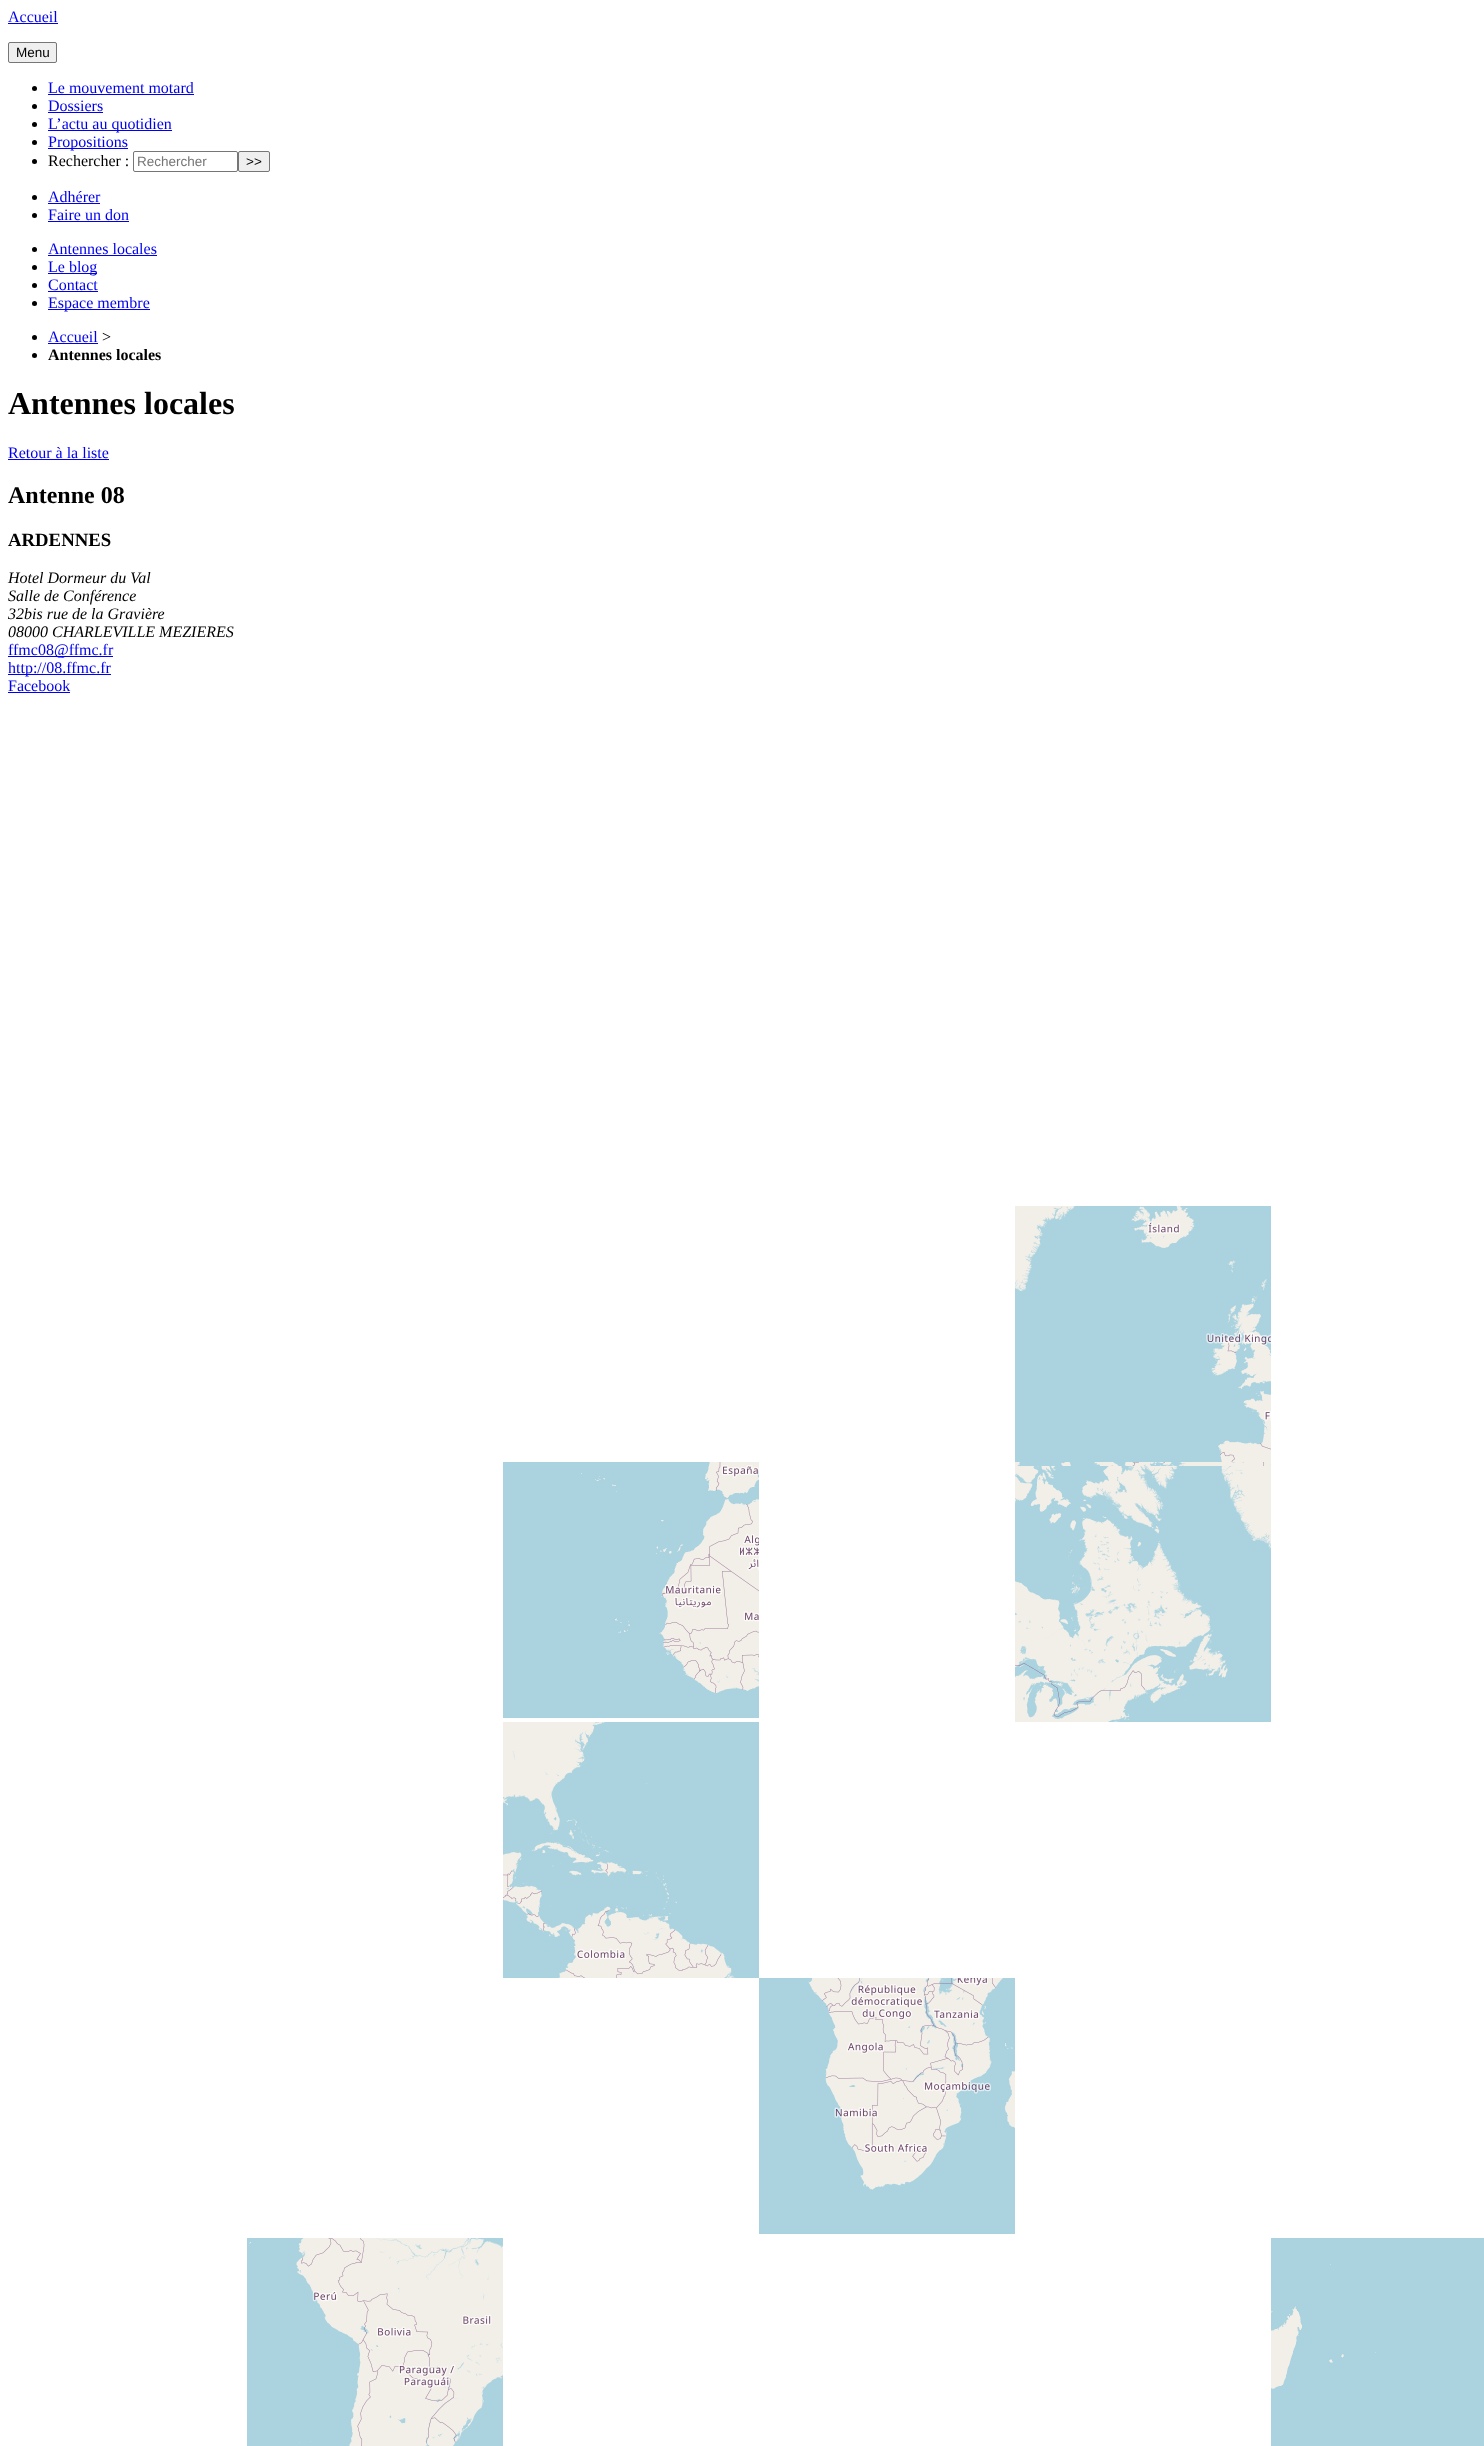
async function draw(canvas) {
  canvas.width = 1484;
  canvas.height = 2446;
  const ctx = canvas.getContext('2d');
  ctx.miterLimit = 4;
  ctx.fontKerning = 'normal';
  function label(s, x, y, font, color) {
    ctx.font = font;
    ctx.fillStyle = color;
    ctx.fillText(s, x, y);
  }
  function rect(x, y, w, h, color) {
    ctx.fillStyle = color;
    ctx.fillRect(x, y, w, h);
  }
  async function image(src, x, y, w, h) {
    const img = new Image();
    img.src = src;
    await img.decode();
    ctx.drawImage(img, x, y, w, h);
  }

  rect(0, 0, 1484, 2446, '#fff');
  label('Accueil', 8, 22, '16px Liberation Serif', '#00e');
  rect(8, 23, 50, 1, '#00e');
  ctx.fillStyle = '#efefef';
  ctx.beginPath();
  ctx.roundRect(8.5, 42.5, 48, 20, 1.5);
  ctx.fill();
  ctx.strokeStyle = '#767676';
  ctx.stroke();
  label('Menu', 16, 57, '13.5px Liberation Sans', '#000');
  ctx.beginPath();
  ctx.arc(34.5, 88.5, 2.5, 0, 2 * Math.PI);
  ctx.fill();
  label('Le mouvement motard', 48, 93, '16px Liberation Serif', '#00e');
  rect(48, 94, 146, 1, '#00e');
  ctx.fillStyle = '#000';
  ctx.beginPath();
  ctx.arc(34.5, 106.5, 2.5, 0, 2 * Math.PI);
  ctx.fill();
  label('Dossiers', 48, 111, '16px Liberation Serif', '#00e');
  rect(48, 112, 55, 1, '#00e');
  ctx.fillStyle = '#000';
  ctx.beginPath();
  ctx.arc(34.5, 124.5, 2.5, 0, 2 * Math.PI);
  ctx.fill();
  rect(48, 130, 124, 1, '#00e');
  label('L’actu au quotidien', 48, 129, '16px Liberation Serif', '#00e');
  ctx.fillStyle = '#000';
  ctx.beginPath();
  ctx.arc(34.5, 142.5, 2.5, 0, 2 * Math.PI);
  ctx.fill();
  rect(48, 148, 80, 1, '#00e');
  label('Propositions', 48, 147, '16px Liberation Serif', '#00e');
  ctx.fillStyle = '#000';
  ctx.beginPath();
  ctx.arc(34.5, 161.5, 2.5, 0, 2 * Math.PI);
  ctx.fill();
  label('Rechercher :', 48, 166, '16px Liberation Serif', '#000');
  ctx.beginPath();
  ctx.roundRect(133.5, 151.5, 104, 20, 1.5);
  ctx.stroke();
  label('Rechercher', 137, 166, '13.5px Liberation Sans', '#757575');
  ctx.fillStyle = '#efefef';
  ctx.beginPath();
  ctx.roundRect(238.5, 151.5, 31, 20, 1.5);
  ctx.fill();
  ctx.stroke();
  label('>>', 246, 166, '13.5px Liberation Sans', '#000');
  ctx.beginPath();
  ctx.arc(34.5, 197.5, 2.5, 0, 2 * Math.PI);
  ctx.fill();
  label('Adhérer', 48, 202, '16px Liberation Serif', '#00e');
  rect(48, 203, 52, 1, '#00e');
  ctx.fillStyle = '#000';
  ctx.beginPath();
  ctx.arc(34.5, 215.5, 2.5, 0, 2 * Math.PI);
  ctx.fill();
  label('Faire un don', 48, 220, '16px Liberation Serif', '#00e');
  rect(48, 221, 81, 1, '#00e');
  ctx.fillStyle = '#000';
  ctx.beginPath();
  ctx.arc(34.5, 249.5, 2.5, 0, 2 * Math.PI);
  ctx.fill();
  label('Antennes locales', 48, 254, '16px Liberation Serif', '#00e');
  rect(48, 255, 109, 1, '#00e');
  ctx.fillStyle = '#000';
  ctx.beginPath();
  ctx.arc(34.5, 267.5, 2.5, 0, 2 * Math.PI);
  ctx.fill();
  rect(48, 273, 49, 1, '#00e');
  label('Le blog', 48, 272, '16px Liberation Serif', '#00e');
  ctx.fillStyle = '#000';
  ctx.beginPath();
  ctx.arc(34.5, 285.5, 2.5, 0, 2 * Math.PI);
  ctx.fill();
  label('Contact', 48, 290, '16px Liberation Serif', '#00e');
  rect(48, 291, 50, 1, '#00e');
  ctx.fillStyle = '#000';
  ctx.beginPath();
  ctx.arc(34.5, 303.5, 2.5, 0, 2 * Math.PI);
  ctx.fill();
  rect(48, 309, 102, 1, '#00e');
  label('Espace membre', 48, 308, '16px Liberation Serif', '#00e');
  ctx.fillStyle = '#000';
  ctx.beginPath();
  ctx.arc(34.5, 337.5, 2.5, 0, 2 * Math.PI);
  ctx.fill();
  label('Accueil', 48, 342, '16px Liberation Serif', '#00e');
  rect(48, 343, 50, 1, '#00e');
  label('>', 102, 342, '16px Liberation Serif', '#000');
  ctx.beginPath();
  ctx.arc(34.5, 355.5, 2.5, 0, 2 * Math.PI);
  ctx.fill();
  label('Antennes locales', 48, 360, 'bold 16px Liberation Serif', '#000');
  label('Antennes locales', 8, 414, 'bold 32px Liberation Serif', '#000');
  label('Retour à la liste', 8, 458, '16px Liberation Serif', '#00e');
  rect(8, 459, 101, 1, '#00e');
  label('Antenne 08', 8, 503, 'bold 24px Liberation Serif', '#000');
  label('ARDENNES', 8, 546, 'bold 18.75px Liberation Serif', '#000');
  label('Hotel Dormeur du Val', 8, 583, 'italic 16px Liberation Serif', '#000');
  label('Salle de Conférence', 8, 601, 'italic 16px Liberation Serif', '#000');
  label('32bis rue de la Gravière', 8, 619, 'italic 16px Liberation Serif', '#000');
  label('08000 CHARLEVILLE MEZIERES', 8, 637, 'italic 16px Liberation Serif', '#000');
  rect(8, 656, 105, 1, '#00e');
  label('ffmc08@ffmc.fr', 8, 655, '16px Liberation Serif', '#00e');
  rect(8, 674, 103, 1, '#00e');
  label('http://08.ffmc.fr', 8, 673, '16px Liberation Serif', '#00e');
  label('Facebook', 8, 691, '16px Liberation Serif', '#00e');
  rect(8, 692, 62, 1, '#00e');
  await image('assets/img1.png', 1015, 1206, 256, 256);
  await image('assets/img2.png', 503, 1462, 256, 256);
  await image('assets/img3.png', 1015, 1462, 256, 4);
  await image('assets/img4.png', 1015, 1466, 256, 256);
  await image('assets/img5.png', 503, 1722, 256, 256);
  await image('assets/img6.png', 759, 1978, 256, 256);
  await image('assets/img7.png', 247, 2238, 256, 208);
  await image('assets/img8.png', 1271, 2238, 213, 208);
}

draw(document.querySelector('canvas'));
